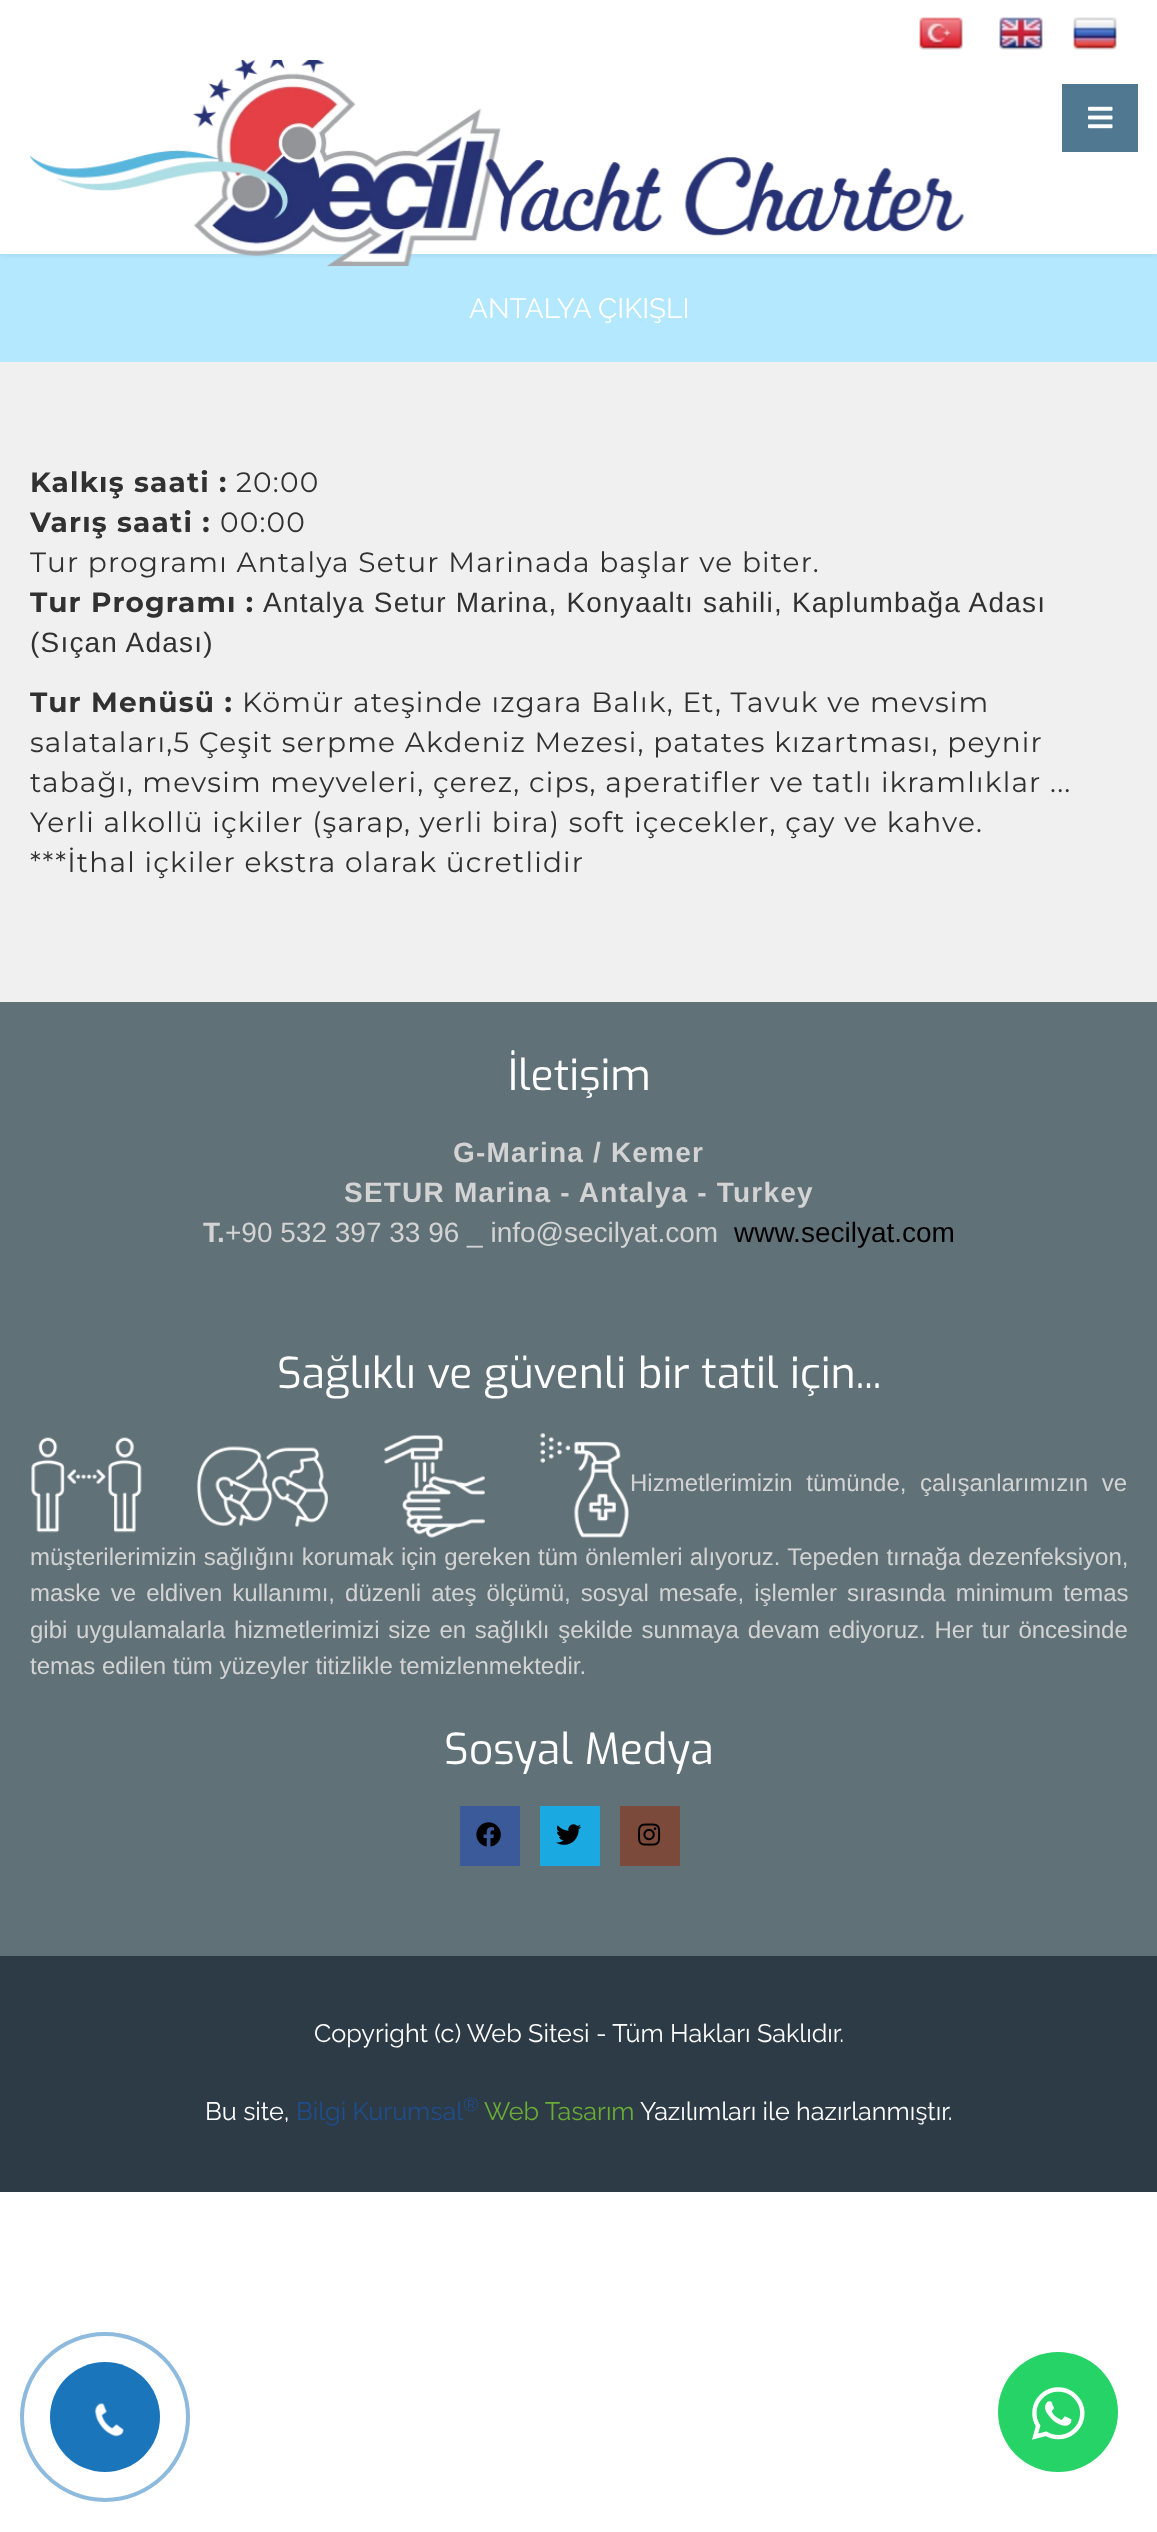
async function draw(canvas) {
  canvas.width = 1157;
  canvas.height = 2532;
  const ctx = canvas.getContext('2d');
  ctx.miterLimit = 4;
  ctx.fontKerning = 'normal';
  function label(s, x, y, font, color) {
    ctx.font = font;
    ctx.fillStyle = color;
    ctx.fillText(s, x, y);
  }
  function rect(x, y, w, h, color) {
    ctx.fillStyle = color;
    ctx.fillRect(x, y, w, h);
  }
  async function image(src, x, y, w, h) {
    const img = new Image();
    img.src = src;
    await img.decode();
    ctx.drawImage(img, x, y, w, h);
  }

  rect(0, 0, 1157, 2532, '#fff');
  rect(0, 254, 1157, 108, '#b3e8ff');
  ctx.fillStyle = '#0000001a';
  ctx.filter = 'blur(3px)';
  ctx.beginPath();
  ctx.rect(0, 0, 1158, 254);
  ctx.fill();
  ctx.filter = 'none';
  rect(0, 0, 1157, 254, '#fff');
  await image('assets/img1.png', 919, 17, 44, 33);
  await image('assets/img2.png', 999, 17, 44, 33);
  await image('assets/img3.png', 1073, 17, 44, 33);
  await image('assets/img4.png', 30, 60, 934, 207);
  rect(1062, 84, 76, 68, '#507991');
  await image('assets/img5.png', 1088, 106, 25, 23);
  rect(0, 362, 1157, 640, '#f0f0f0');
  label('ANTALYA ÇIKIŞLI', 469, 318, '28px Raleway', '#fff');
  ctx.letterSpacing = '1.2px';
  label('Kalkış saati :', 30, 492, 'bold 28px Montserrat', '#313131');
  label('20:00', 236, 492, '28px Montserrat', '#313131');
  label('Varış saati :', 30, 532, 'bold 28px Montserrat', '#313131');
  label('00:00', 220, 532, '28px Montserrat', '#313131');
  label('Tur programı Antalya Setur Marinada başlar ve biter.', 30, 572, '28px Montserrat', '#313131');
  label('Tur Programı :', 30, 612, 'bold 28px Montserrat', '#313131');
  label('Antalya Setur Marina, Konyaaltı sahili, Kaplumbağa Adası', 263, 612, '28px Liberation Sans', '#313131');
  label('(Sıçan Adası)', 30, 652, '28px Liberation Sans', '#313131');
  label('Tur Menüsü :', 30, 712, 'bold 28px Montserrat', '#313131');
  label('Kömür ateşinde ızgara Balık, Et, Tavuk ve mevsim', 242, 712, '28px Montserrat', '#313131');
  label('salataları,5 Çeşit serpme Akdeniz Mezesi, patates kızartması, peynir', 30, 752, '28px Montserrat', '#313131');
  label('tabağı, mevsim meyveleri, çerez, cips, aperatifler ve tatlı ikramlıklar ...', 30, 792, '28px Montserrat', '#313131');
  label('Yerli alkollü içkiler (şarap, yerli bira) soft içecekler, çay ve kahve.', 30, 832, '28px Montserrat', '#313131');
  label('***İthal içkiler ekstra olarak ücretlidir', 30, 872, '28px Montserrat', '#313131');
  rect(0, 1002, 1157, 954, '#617178');
  ctx.letterSpacing = '0px';
  label('İletişim', 508, 1090, '42.7px Exo', '#fff');
  ctx.letterSpacing = '1.2px';
  label('G-Marina / Kemer', 453, 1162, 'bold 28px Liberation Sans', '#d3d3d3');
  label('SETUR Marina - Antalya - Turkey', 344, 1202, 'bold 28px Liberation Sans', '#d3d3d3');
  ctx.letterSpacing = '0px';
  label('T.', 203, 1242, 'bold 28px Liberation Sans', '#d3d3d3');
  label('+90 532 397 33 96 _ info@secilyat.com', 225, 1242, '28px Liberation Sans', '#d3d3d3');
  label('www.secilyat.com', 734, 1242, '28px Liberation Sans', '#000');
  label('Sağlıklı ve güvenli bir tatil için...', 277, 1388, '42.7px Exo', '#fff');
  await image('assets/img6.png', 31, 1433, 598, 105);
  ctx.wordSpacing = '7px';
  label('Hizmetlerimizin tümünde, çalışanlarımızın ve', 630, 1491, '24px Liberation Sans', '#d3d3d3');
  ctx.wordSpacing = '0.5px';
  label('müşterilerimizin sağlığını korumak için gereken tüm önlemleri alıyoruz. Tepeden tırnağa dezenfeksiyon,', 30, 1565, '24px Liberation Sans', '#d3d3d3');
  ctx.wordSpacing = '3.4px';
  label('maske ve eldiven kullanımı, düzenli ateş ölçümü, sosyal mesafe, işlemler sırasında minimum temas', 30, 1601, '24px Liberation Sans', '#d3d3d3');
  ctx.wordSpacing = '2px';
  label('gibi uygulamalarla hizmetlerimizi size en sağlıklı şekilde sunmaya devam ediyoruz. Her tur öncesinde', 30, 1638, '24px Liberation Sans', '#d3d3d3');
  ctx.wordSpacing = '0px';
  label('temas edilen tüm yüzeyler titizlikle temizlenmektedir.', 30, 1674, '24px Liberation Sans', '#d3d3d3');
  label('Sosyal Medya', 444, 1764, '42.7px Exo', '#fff');
  rect(460, 1806, 60, 60, '#3b5a9a');
  await image('assets/img7.png', 476, 1822, 25, 25);
  rect(540, 1806, 60, 60, '#1aa9e1');
  await image('assets/img8.png', 556, 1824, 25, 21);
  rect(620, 1806, 60, 60, '#7c4a3a');
  await image('assets/img9.png', 638, 1823, 23, 23);
  rect(0, 1956, 1157, 236, '#2d3b47');
  label('Copyright (c) Web Sitesi - Tüm Hakları Saklıdır.', 314, 2042, '25.2px Raleway', '#fff');
  label('Bu site,', 205, 2120, '25.2px Raleway', '#fff');
  label('Bilgi Kurumsal', 296, 2120, '25.2px Raleway', '#1e4e8e');
  label('®', 463, 2111, '19px Raleway', '#1e4e8e');
  label('Web Tasarım', 484, 2120, '25.2px Raleway', '#6aad34');
  label('Yazılımları ile hazırlanmıştır.', 640, 2120, '25.2px Raleway', '#fff');
  ctx.beginPath();
  ctx.arc(105, 2417, 83, 0, 2 * Math.PI);
  ctx.strokeStyle = '#8dbadd';
  ctx.lineWidth = 4;
  ctx.stroke();
  ctx.fillStyle = '#1b75bb';
  ctx.beginPath();
  ctx.arc(105, 2417, 55, 0, 2 * Math.PI);
  ctx.fill();
  await image('assets/img10.png', 94, 2403, 30, 34);
  ctx.fillStyle = '#25d366';
  ctx.beginPath();
  ctx.arc(1058, 2412, 60, 0, 2 * Math.PI);
  ctx.fill();
  await image('assets/img11.png', 1032, 2387, 53, 53);
}

draw(document.querySelector('canvas'));
